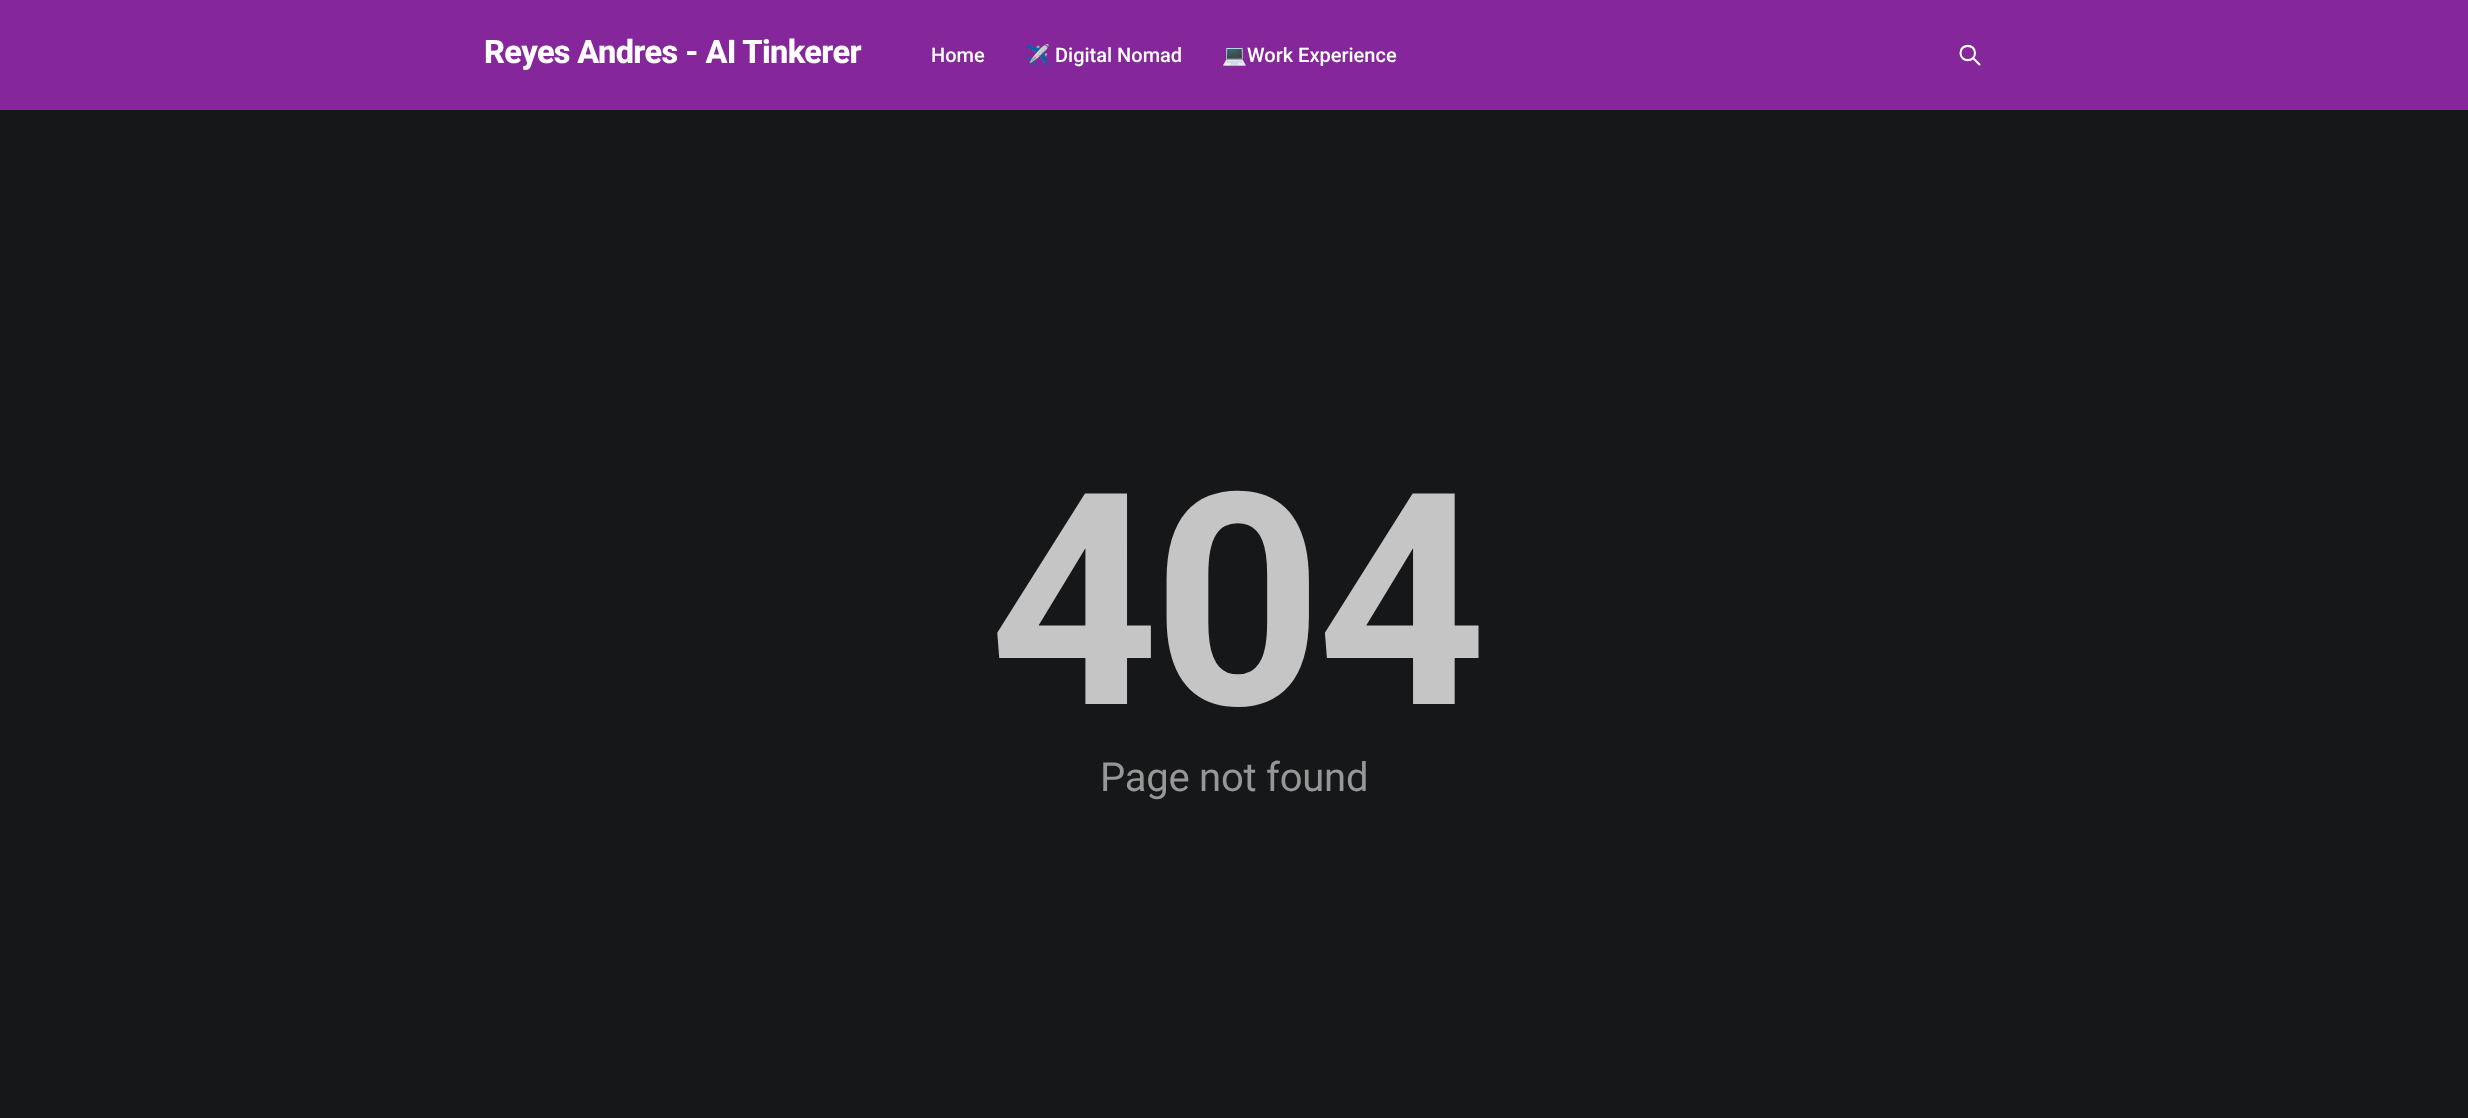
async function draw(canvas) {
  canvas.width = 2468;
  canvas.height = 1118;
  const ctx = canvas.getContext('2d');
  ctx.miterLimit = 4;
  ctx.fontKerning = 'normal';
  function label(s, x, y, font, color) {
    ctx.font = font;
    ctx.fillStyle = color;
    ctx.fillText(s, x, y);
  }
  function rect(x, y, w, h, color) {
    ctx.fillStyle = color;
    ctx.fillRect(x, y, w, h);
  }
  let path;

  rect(0, 0, 2468, 1118, '#151719');
  rect(0, 0, 2468, 110, '#85269b');
  ctx.letterSpacing = '-0.65px';
  label('Reyes Andres - AI Tinkerer', 484, 63, '800 32.5px Roboto', '#fff');
  ctx.letterSpacing = '0px';
  label('Home', 931, 62, '500 20px Roboto', '#fff');
  label('✈️', 1025, 62, '20px Noto Color Emoji', '#fff');
  label('Digital Nomad', 1055, 62, '500 20px Roboto', '#fff');
  label('💻', 1222, 62, '20px Noto Color Emoji', '#fff');
  label('Work Experience', 1247, 62, '500 20px Roboto', '#fff');
  path = new Path2D('M1979.5 64.5L1973 58M1975 53C1975 62.5 1960.5 62.5 1960.5 53C1960.5 43.5 1975 43.5 1975 53Z');
  ctx.strokeStyle = '#fff';
  ctx.lineWidth = 2.1;
  ctx.lineCap = 'round';
  ctx.lineJoin = 'round';
  ctx.stroke(path);
  ctx.letterSpacing = '-6px';
  label('404', 989, 704, 'bold 296px Roboto', '#c5c5c6');
  ctx.letterSpacing = '-0.25px';
  label('Page not found', 1100, 791, '40px Roboto', '#979797');
}

draw(document.querySelector('canvas'));
